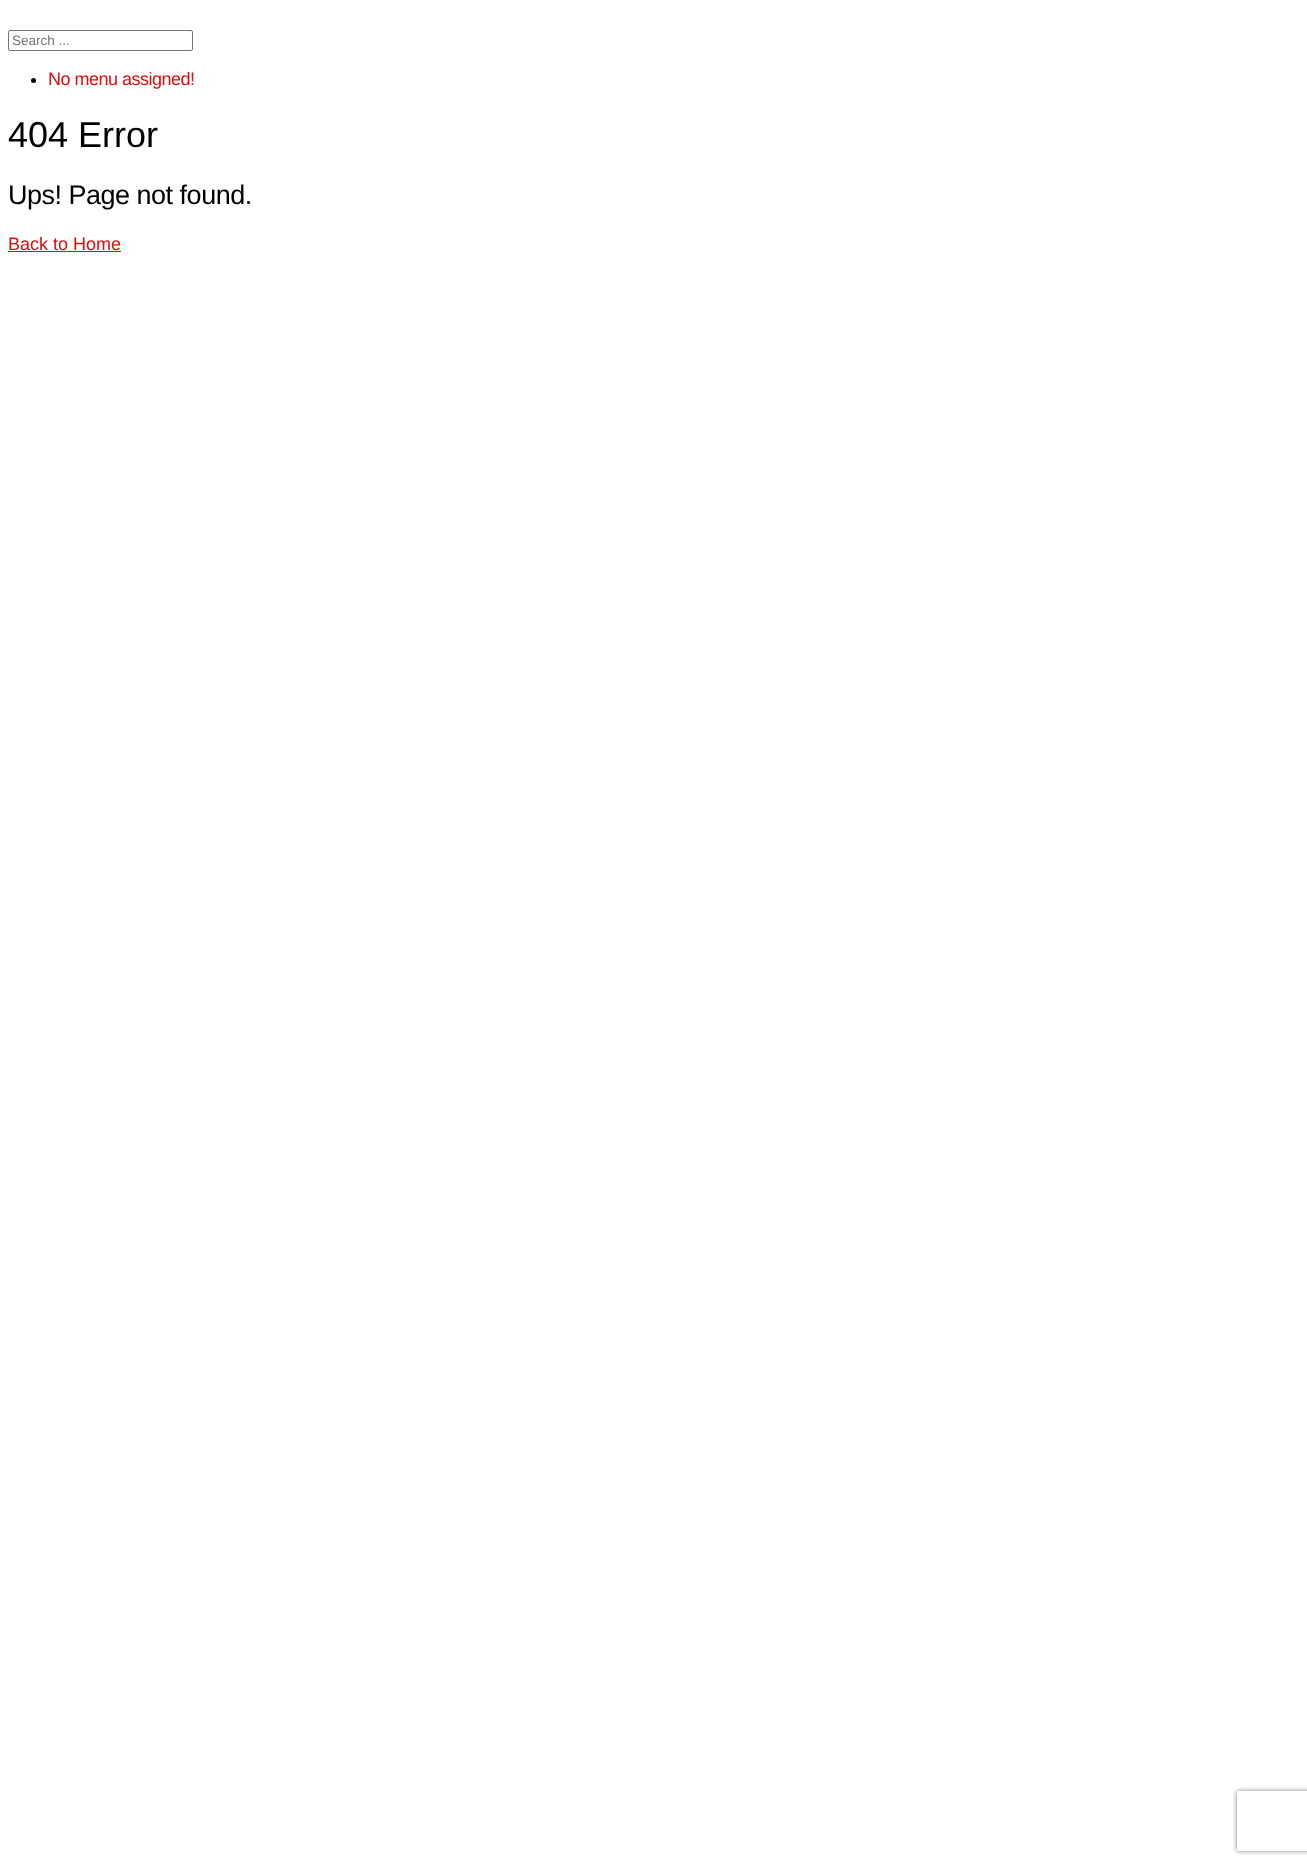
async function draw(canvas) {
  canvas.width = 1307;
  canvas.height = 1865;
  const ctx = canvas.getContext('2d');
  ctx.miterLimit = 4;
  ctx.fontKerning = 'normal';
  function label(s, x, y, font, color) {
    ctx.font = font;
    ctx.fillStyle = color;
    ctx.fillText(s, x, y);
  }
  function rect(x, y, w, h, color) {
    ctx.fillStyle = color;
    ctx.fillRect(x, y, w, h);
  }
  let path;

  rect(0, 0, 1307, 1865, '#fff');
  ctx.beginPath();
  ctx.roundRect(8.5, 30.5, 184, 20, 1.5);
  ctx.strokeStyle = '#767676';
  ctx.stroke();
  label('Search ...', 12, 45, '13.5px Liberation Sans', '#757575');
  ctx.fillStyle = '#000';
  ctx.beginPath();
  ctx.arc(33.5, 80.5, 2.5, 0, 2 * Math.PI);
  ctx.fill();
  ctx.letterSpacing = '-0.5px';
  label('No menu assigned!', 48, 85, '18px Liberation Sans', '#e20c0c');
  ctx.letterSpacing = '0px';
  label('404 Error', 8, 147, '36px Liberation Sans', '#000');
  ctx.letterSpacing = '-0.5px';
  label('Ups! Page not found.', 8, 204, '27px Liberation Sans', '#000');
  ctx.letterSpacing = '0px';
  label('Back to Home', 8, 250, '18px Liberation Sans', '#e20c0c');
  rect(8, 251, 113, 1, '#e20c0c');
  ctx.save();
  path = new Path2D('M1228 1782H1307V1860H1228ZM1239 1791H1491C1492 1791 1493 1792 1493 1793V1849C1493 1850 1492 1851 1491 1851H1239C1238 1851 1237 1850 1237 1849V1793C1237 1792 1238 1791 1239 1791Z');
  ctx.clip(path, 'evenodd');
  ctx.fillStyle = '#808080';
  ctx.filter = 'blur(2.5px)';
  ctx.beginPath();
  ctx.roundRect(1237, 1791, 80, 60, 2);
  ctx.fill();
  ctx.filter = 'none';
  ctx.restore();
}

draw(document.querySelector('canvas'));
